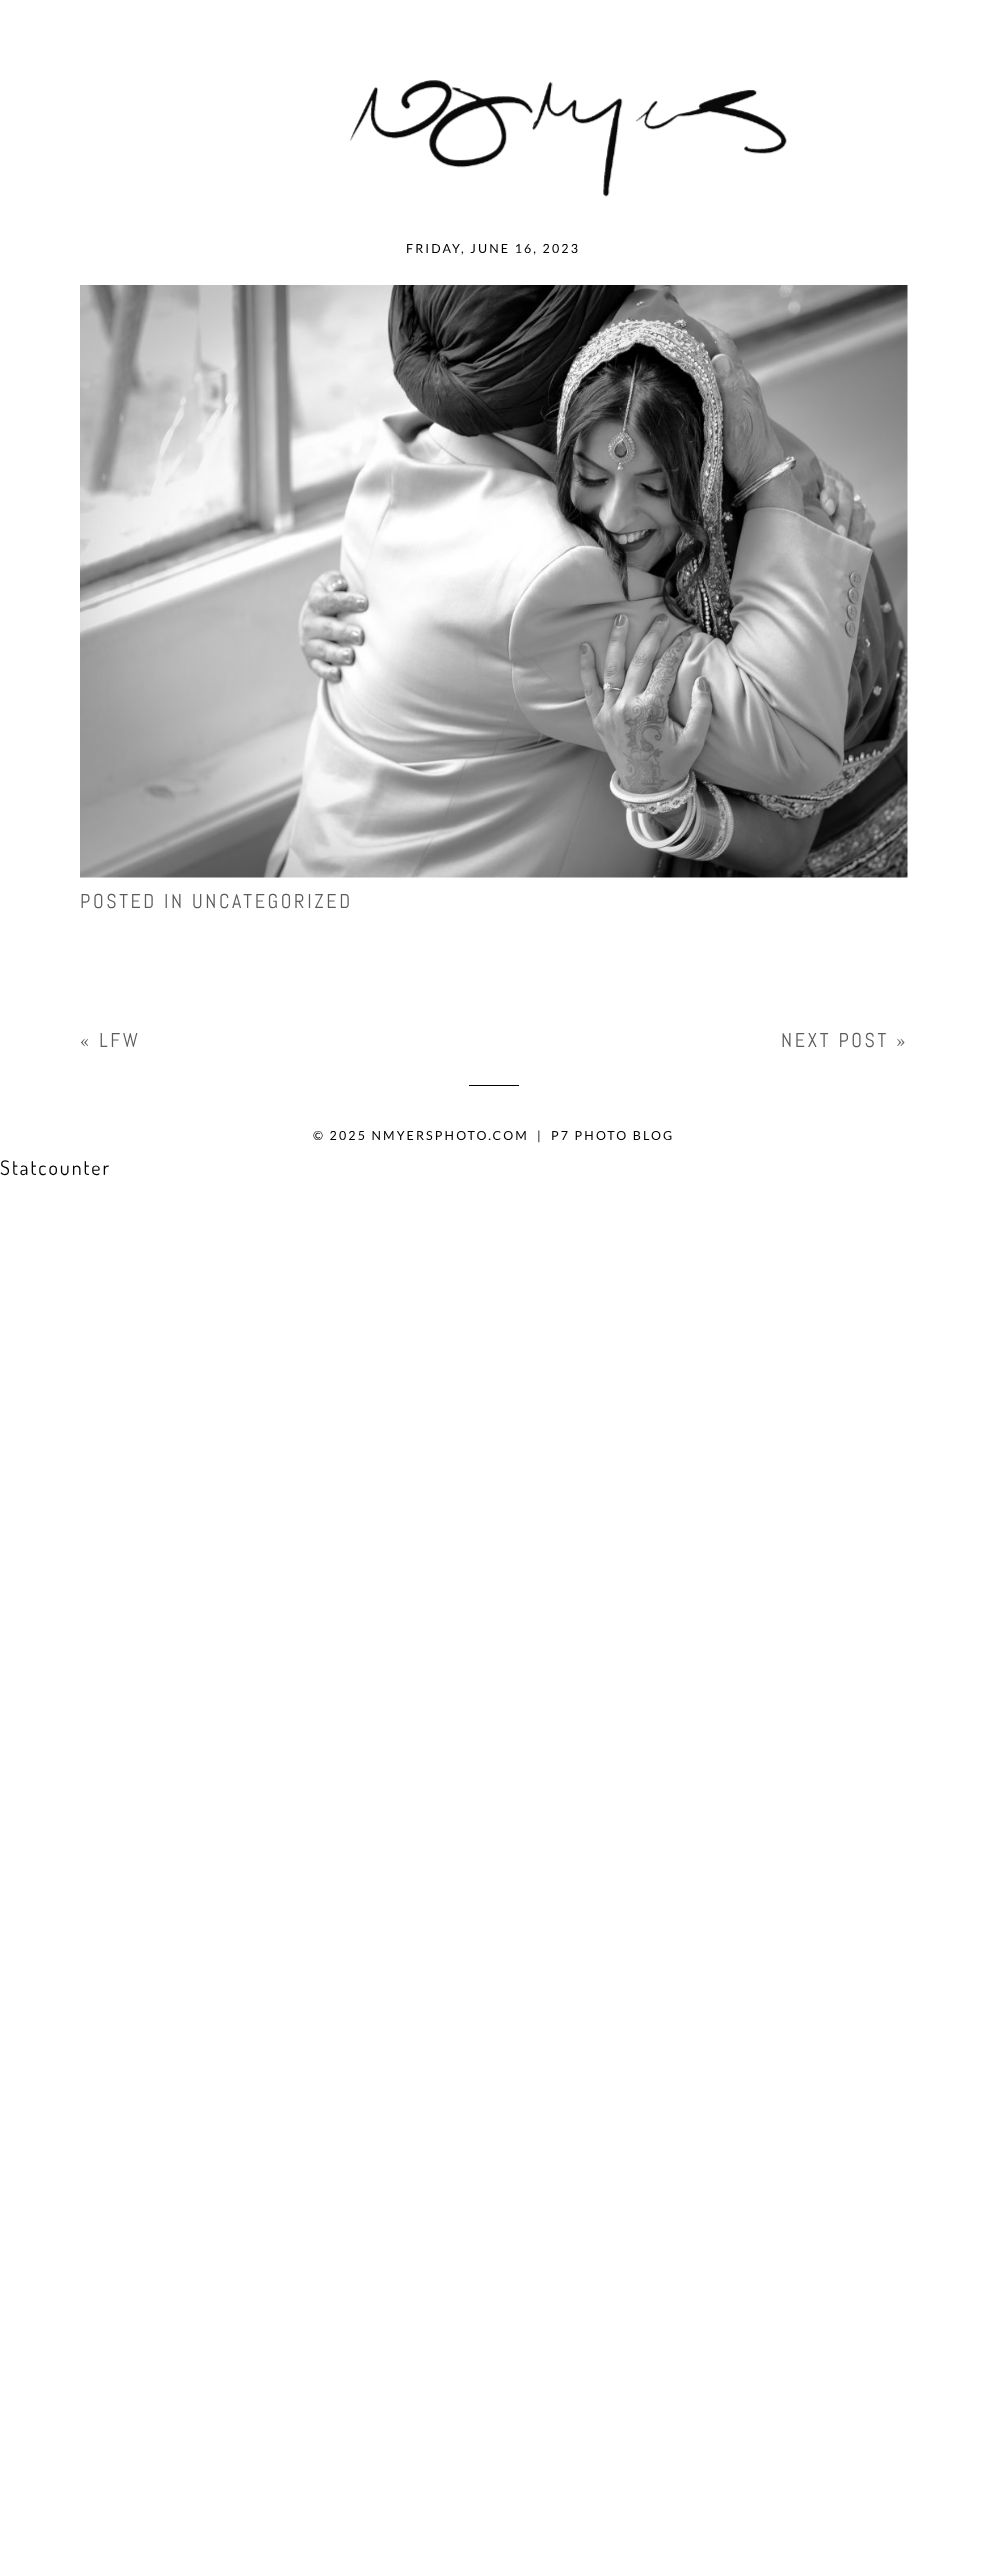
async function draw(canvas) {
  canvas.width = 987;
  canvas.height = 2571;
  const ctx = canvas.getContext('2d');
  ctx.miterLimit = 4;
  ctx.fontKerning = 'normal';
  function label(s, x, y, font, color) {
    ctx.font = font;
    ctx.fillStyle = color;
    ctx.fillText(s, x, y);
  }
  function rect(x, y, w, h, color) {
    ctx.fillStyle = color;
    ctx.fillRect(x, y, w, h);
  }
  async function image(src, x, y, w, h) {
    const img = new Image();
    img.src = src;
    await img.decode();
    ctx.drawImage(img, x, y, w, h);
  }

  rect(0, 0, 987, 2571, '#fff');
  await image('assets/img1.png', 350, 80, 437, 117);
  ctx.letterSpacing = '2.1px';
  label('FRIDAY, JUNE 16, 2023', 406, 253, '12.5px Lato', '#000');
  await image('assets/img2.png', 80, 285, 828, 593);
  ctx.letterSpacing = '2.6px';
  label('POSTED IN UNCATEGORIZED', 80, 908, '20px Abel', '#5e5b5b');
  label('« LFW', 80, 1047, '20px Abel', '#5e5b5b');
  label('NEXT POST »', 781, 1047, '20px Abel', '#5e5b5b');
  rect(469, 1085, 50, 1, '#000');
  ctx.letterSpacing = '2.1px';
  label('© 2025 NMYERSPHOTO.COM', 313, 1140, '12.5px Lato', '#000');
  label('|', 537, 1140, '12.5px Lato', '#000');
  label('P7 PHOTO BLOG', 551, 1140, '12.5px Lato', '#000');
  ctx.letterSpacing = '2px';
  label('Statcounter', 0, 1175, '20px Dosis', '#000');
}

draw(document.querySelector('canvas'));
